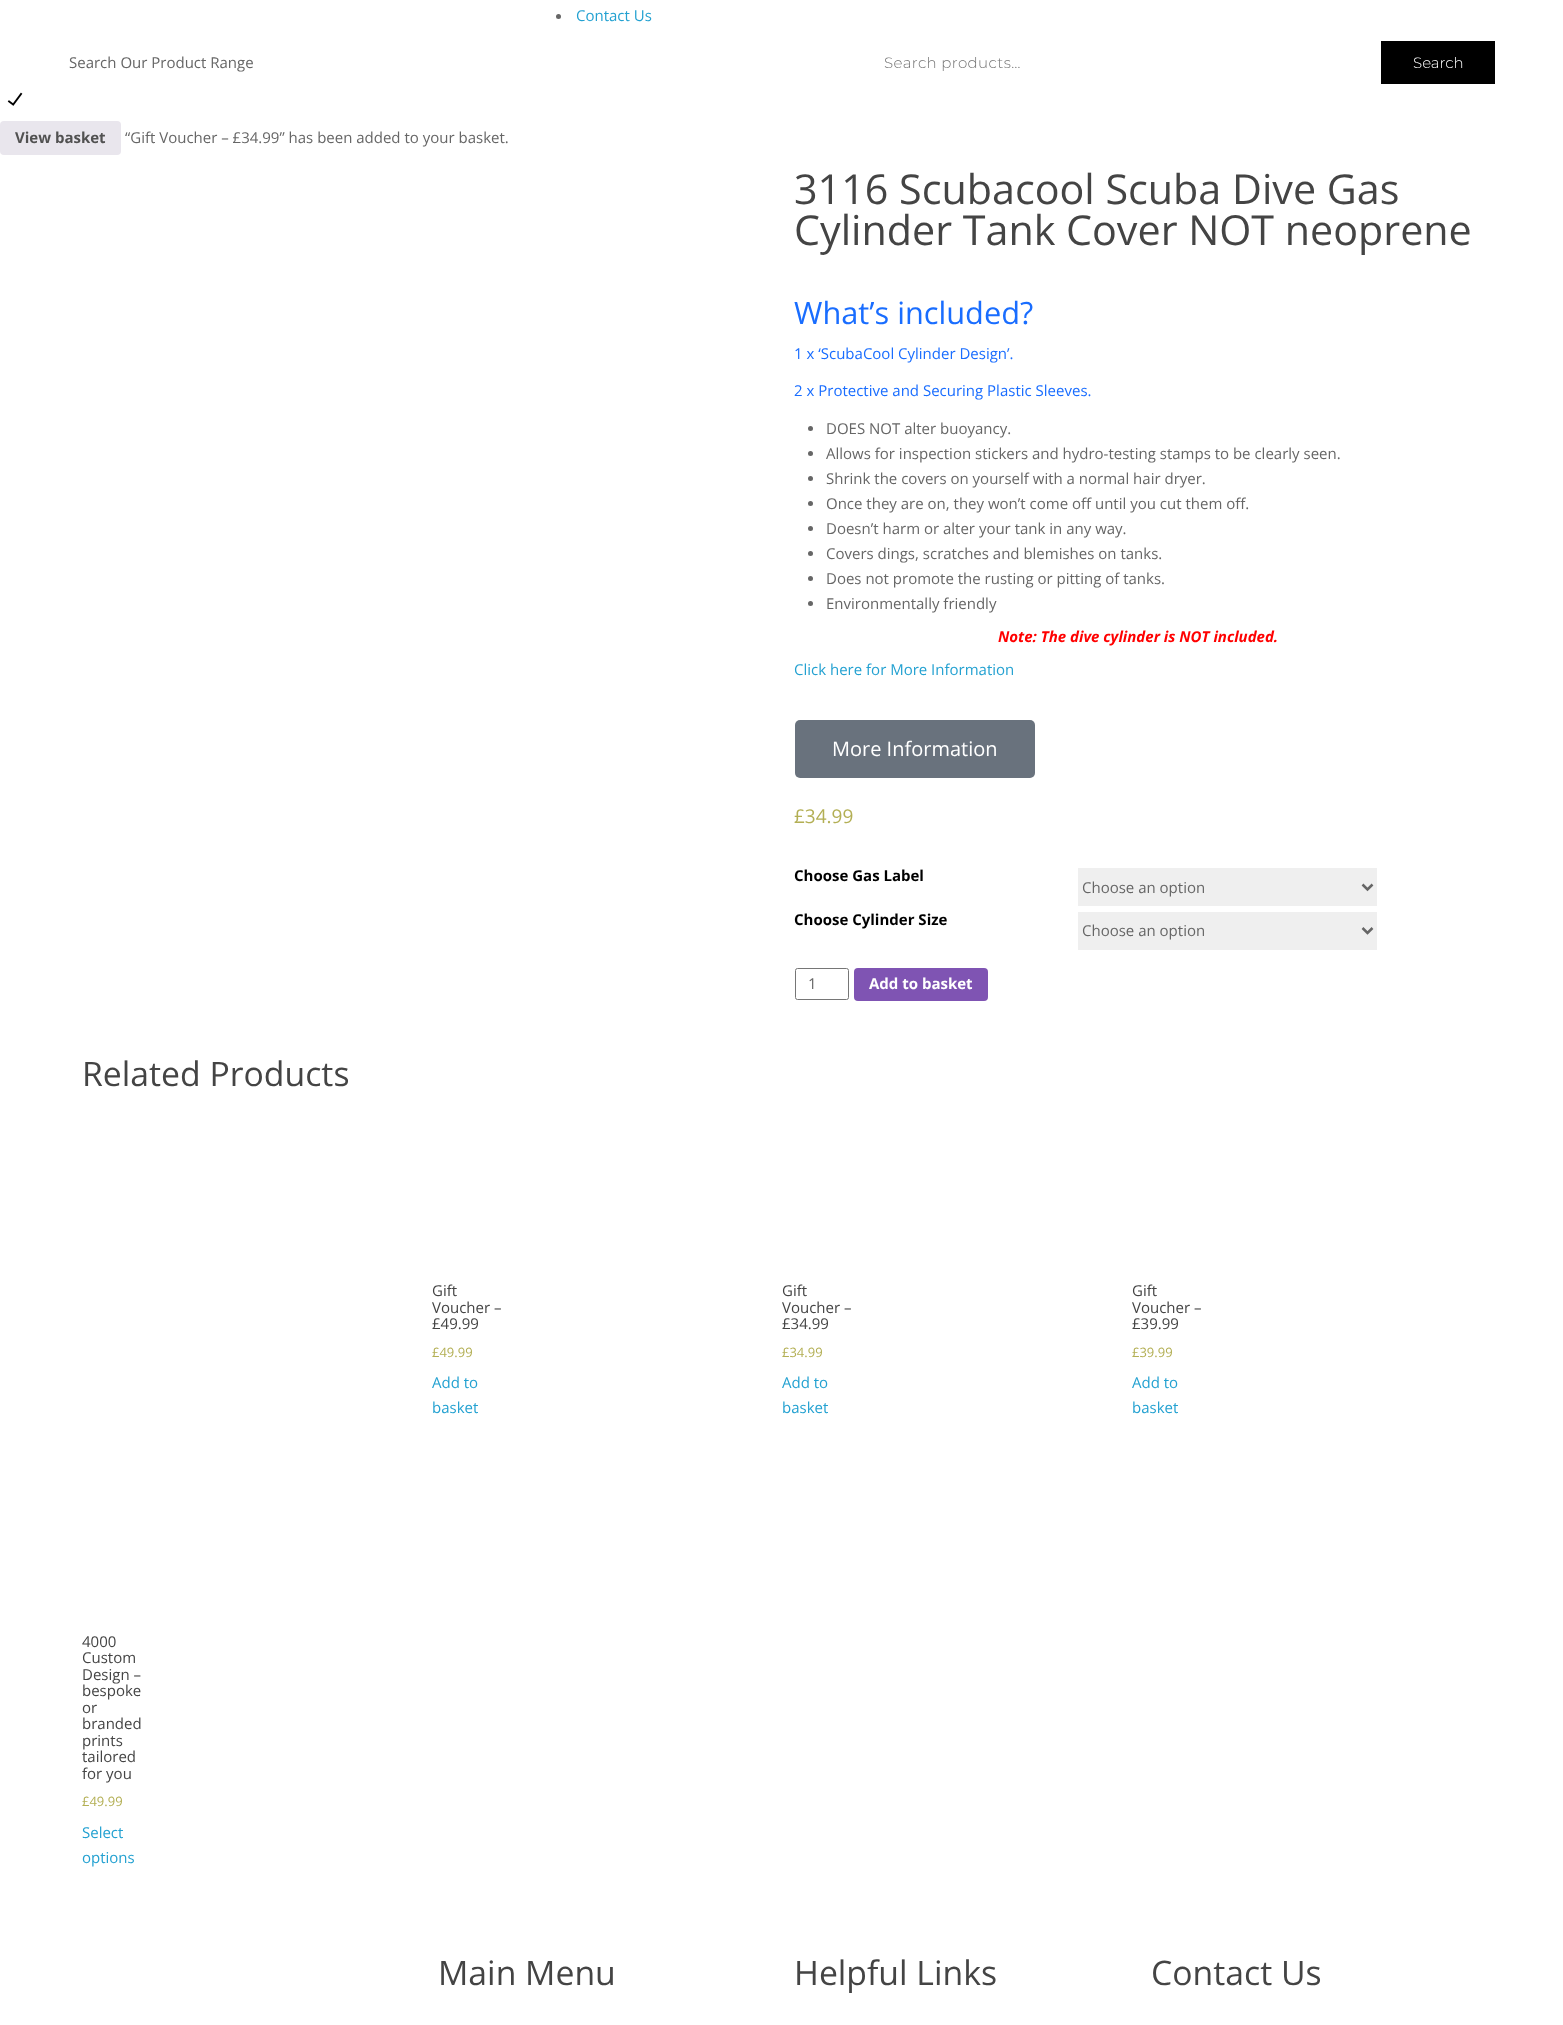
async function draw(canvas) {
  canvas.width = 1563;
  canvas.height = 2025;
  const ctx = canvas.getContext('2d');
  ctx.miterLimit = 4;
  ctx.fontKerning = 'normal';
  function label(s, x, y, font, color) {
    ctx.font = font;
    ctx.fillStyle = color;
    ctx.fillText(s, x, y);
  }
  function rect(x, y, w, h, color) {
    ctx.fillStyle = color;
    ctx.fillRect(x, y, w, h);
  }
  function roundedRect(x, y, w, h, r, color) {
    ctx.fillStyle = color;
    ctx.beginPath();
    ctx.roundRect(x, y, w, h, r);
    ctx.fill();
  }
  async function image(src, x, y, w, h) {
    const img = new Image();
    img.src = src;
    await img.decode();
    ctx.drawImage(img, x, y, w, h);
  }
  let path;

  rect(0, 0, 1563, 2025, '#fff');
  ctx.fillStyle = '#666';
  ctx.beginPath();
  ctx.arc(558.5, 16.5, 2.5, 0, 2 * Math.PI);
  ctx.fill();
  label('Contact Us', 576, 21, '15px Open Sans', '#23a1d1');
  label('Search Our Product Range', 69, 68, '15px Open Sans', '#666');
  ctx.letterSpacing = '0.4px';
  label('Search products…', 884, 68, '300 15px Montserrat', '#757575');
  rect(1381, 41, 114, 43, '#000');
  ctx.letterSpacing = '0px';
  label('Search', 1413, 68, '300 15px Montserrat', '#fff');
  await image('assets/img1.png', 7, 92, 16, 14);
  roundedRect(0, 121, 121, 34, 4, '#e9e6ed');
  label('View basket', 15, 143, 'bold 15px Open Sans', '#515151');
  label('“Gift Voucher – £34.99” has been added to your basket.', 125, 143, '15px Open Sans', '#666');
  label('3116 Scubacool Scuba Dive Gas', 794, 204, '41.25px Open Sans', '#444');
  label('Cylinder Tank Cover NOT neoprene', 794, 245, '41.25px Open Sans', '#444');
  label('What’s included?', 794, 324, '30.75px Open Sans', '#196dff');
  label('1 x ‘ScubaCool Cylinder Design’.', 794, 359, '15px Open Sans', '#196dff');
  label('2 x Protective and Securing Plastic Sleeves.', 794, 396, '15px Open Sans', '#196dff');
  ctx.fillStyle = '#666';
  ctx.beginPath();
  ctx.arc(810.5, 428.5, 2.5, 0, 2 * Math.PI);
  ctx.fill();
  label('DOES NOT alter buoyancy.', 826, 434, '15px Open Sans', '#666');
  ctx.beginPath();
  ctx.arc(810.5, 453.5, 2.5, 0, 2 * Math.PI);
  ctx.fill();
  label('Allows for inspection stickers and hydro-testing stamps to be clearly seen.', 826, 459, '15px Open Sans', '#666');
  ctx.beginPath();
  ctx.arc(810.5, 478.5, 2.5, 0, 2 * Math.PI);
  ctx.fill();
  label('Shrink the covers on yourself with a normal hair dryer.', 826, 484, '15px Open Sans', '#666');
  ctx.beginPath();
  ctx.arc(810.5, 503.5, 2.5, 0, 2 * Math.PI);
  ctx.fill();
  label('Once they are on, they won’t come off until you cut them off.', 826, 509, '15px Open Sans', '#666');
  ctx.beginPath();
  ctx.arc(810.5, 528.5, 2.5, 0, 2 * Math.PI);
  ctx.fill();
  label('Doesn’t harm or alter your tank in any way.', 826, 534, '15px Open Sans', '#666');
  ctx.beginPath();
  ctx.arc(810.5, 553.5, 2.5, 0, 2 * Math.PI);
  ctx.fill();
  label('Covers dings, scratches and blemishes on tanks.', 826, 559, '15px Open Sans', '#666');
  ctx.beginPath();
  ctx.arc(810.5, 578.5, 2.5, 0, 2 * Math.PI);
  ctx.fill();
  label('Does not promote the rusting or pitting of tanks.', 826, 584, '15px Open Sans', '#666');
  ctx.beginPath();
  ctx.arc(810.5, 603.5, 2.5, 0, 2 * Math.PI);
  ctx.fill();
  label('Environmentally friendly', 826, 609, '15px Open Sans', '#666');
  label('Note: The dive cylinder is NOT included.', 998, 642, 'italic bold 15px Open Sans', '#f00');
  label('Click here for More Information', 794, 675, '15px Open Sans', '#23a1d1');
  roundedRect(795, 720, 240, 58, 5, '#69727d');
  label('More Information', 832, 756, '20px Open Sans', '#fff');
  label('£34.99', 794, 823, '19px Open Sans', '#b3af54');
  label('Choose Gas Label', 794, 881, 'bold 15px Open Sans', '#000');
  rect(1078, 868, 299, 38, '#efefef');
  path = new Path2D('M1362.5 884.5L1367.5 889.5L1372.5 884.5');
  ctx.strokeStyle = '#666';
  ctx.lineWidth = 2.5;
  ctx.stroke(path);
  label('Choose an option', 1082, 893, '15px Open Sans', '#666');
  label('Choose Cylinder Size', 794, 925, 'bold 15px Open Sans', '#000');
  rect(1078, 912, 299, 38, '#efefef');
  path = new Path2D('M1362.5 928L1367.5 933L1372.5 928');
  ctx.stroke(path);
  label('Choose an option', 1082, 936, '15px Open Sans', '#666');
  ctx.beginPath();
  ctx.roundRect(795.5, 968.5, 53, 31, 2);
  ctx.strokeStyle = '#767676';
  ctx.lineWidth = 1;
  ctx.stroke();
  label('1', 808, 989, '15px Open Sans', '#666');
  roundedRect(854, 968, 134, 33, 4, '#7f54b3');
  label('Add to basket', 869, 989, 'bold 15px Open Sans', '#fff');
  label('Related Products', 82, 1086, '33.75px Open Sans', '#444');
  label('Gift', 432, 1296, '15px Open Sans', '#444');
  label('Voucher –', 432, 1313, '15px Open Sans', '#444');
  label('£49.99', 432, 1329, '15px Open Sans', '#444');
  label('£49.99', 432, 1357, '13px Open Sans', '#b3af54');
  label('Add to', 432, 1388, '15px Open Sans', '#23a1d1');
  label('basket', 432, 1413, '15px Open Sans', '#23a1d1');
  label('Gift', 782, 1296, '15px Open Sans', '#444');
  label('Voucher –', 782, 1313, '15px Open Sans', '#444');
  label('£34.99', 782, 1329, '15px Open Sans', '#444');
  label('£34.99', 782, 1357, '13px Open Sans', '#b3af54');
  label('Add to', 782, 1388, '15px Open Sans', '#23a1d1');
  label('basket', 782, 1413, '15px Open Sans', '#23a1d1');
  label('Gift', 1132, 1296, '15px Open Sans', '#444');
  label('Voucher –', 1132, 1313, '15px Open Sans', '#444');
  label('£39.99', 1132, 1329, '15px Open Sans', '#444');
  label('£39.99', 1132, 1357, '13px Open Sans', '#b3af54');
  label('Add to', 1132, 1388, '15px Open Sans', '#23a1d1');
  label('basket', 1132, 1413, '15px Open Sans', '#23a1d1');
  label('4000', 82, 1647, '15px Open Sans', '#444');
  label('Custom', 82, 1663, '15px Open Sans', '#444');
  label('Design –', 82, 1680, '15px Open Sans', '#444');
  label('bespoke', 82, 1696, '15px Open Sans', '#444');
  label('or', 82, 1713, '15px Open Sans', '#444');
  label('branded', 82, 1729, '15px Open Sans', '#444');
  label('prints', 82, 1746, '15px Open Sans', '#444');
  label('tailored', 82, 1762, '15px Open Sans', '#444');
  label('for you', 82, 1779, '15px Open Sans', '#444');
  label('£49.99', 82, 1806, '13px Open Sans', '#b3af54');
  label('Select', 82, 1838, '15px Open Sans', '#23a1d1');
  label('options', 82, 1863, '15px Open Sans', '#23a1d1');
  label('Main Menu', 438, 1985, '33.75px Open Sans', '#444');
  label('Helpful Links', 794, 1985, '33.75px Open Sans', '#444');
  label('Contact Us', 1151, 1985, '33.75px Open Sans', '#444');
}

draw(document.querySelector('canvas'));
